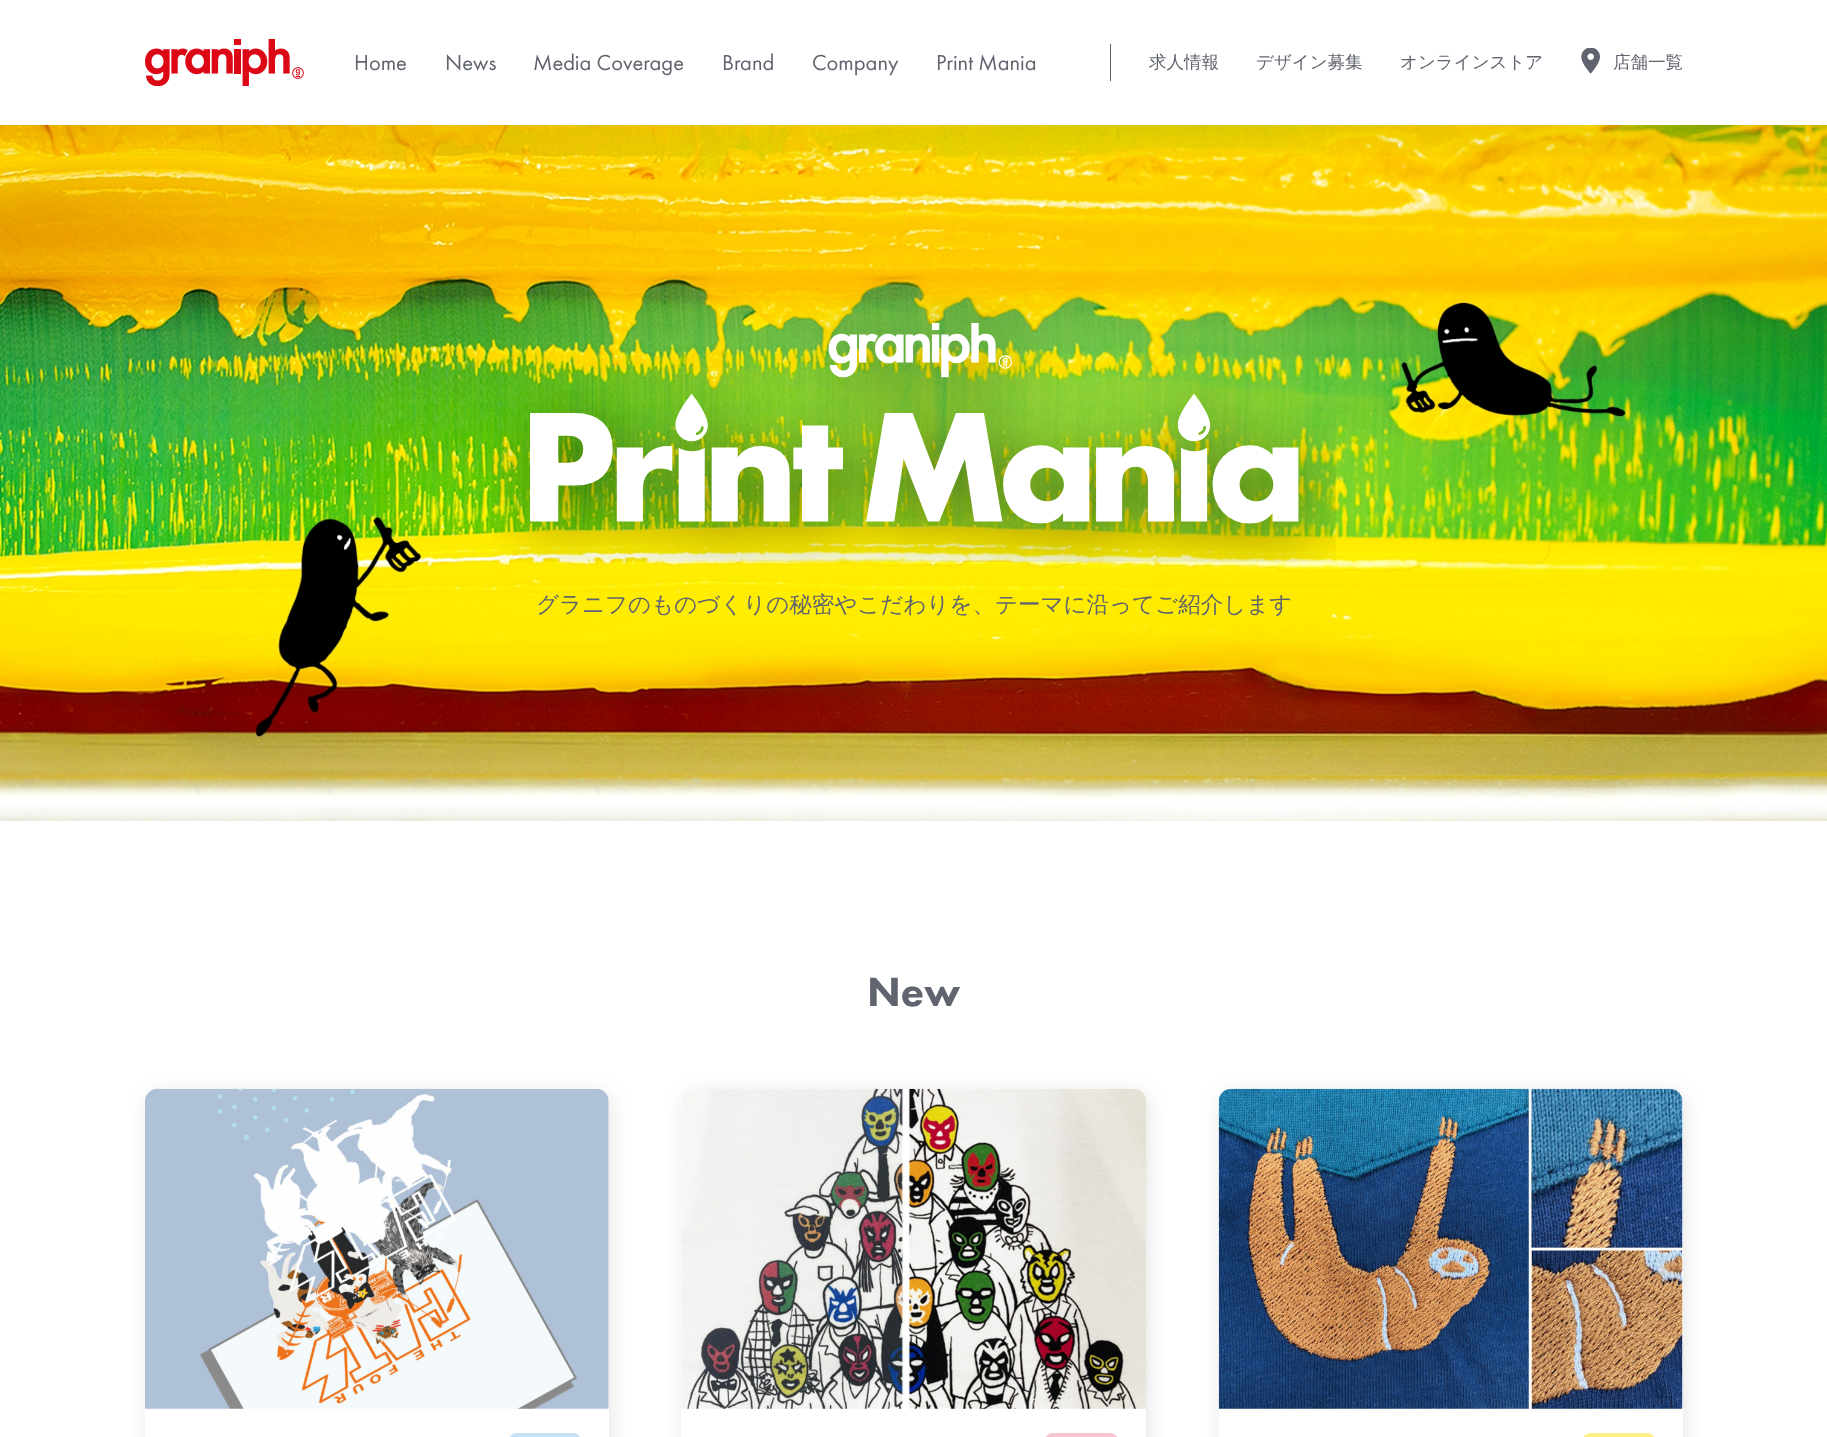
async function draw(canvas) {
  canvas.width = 1827;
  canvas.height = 1437;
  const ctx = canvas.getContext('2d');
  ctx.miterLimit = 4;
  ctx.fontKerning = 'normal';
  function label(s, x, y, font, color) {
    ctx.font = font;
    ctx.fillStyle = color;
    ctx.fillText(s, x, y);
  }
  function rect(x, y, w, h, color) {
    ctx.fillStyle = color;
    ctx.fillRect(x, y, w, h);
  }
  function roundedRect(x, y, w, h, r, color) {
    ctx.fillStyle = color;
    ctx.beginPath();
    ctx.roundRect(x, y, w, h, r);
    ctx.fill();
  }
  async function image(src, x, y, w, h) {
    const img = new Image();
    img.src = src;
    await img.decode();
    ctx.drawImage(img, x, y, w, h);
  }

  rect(0, 0, 1827, 1437, '#fff');
  await image('assets/img3.png', 0, 125, 1827, 696);
  ctx.save();
  ctx.beginPath();
  ctx.rect(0, 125, 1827, 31);
  ctx.clip();
  ctx.fillStyle = '#00000033';
  ctx.filter = 'blur(44px)';
  ctx.beginPath();
  ctx.rect(0, -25, 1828, 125);
  ctx.fill();
  ctx.filter = 'none';
  ctx.restore();
  await image('assets/img1.png', 145, 39, 159, 47);
  label('Home', 354, 70, '22.5px Futura PT', '#60646e');
  label('News', 445, 70, '22.5px Futura PT', '#60646e');
  label('Media Coverage', 533, 70, '22.5px Futura PT', '#60646e');
  label('Brand', 722, 70, '22.5px Futura PT', '#60646e');
  label('Company', 812, 70, '22.5px Futura PT', '#60646e');
  label('Print Mania', 936, 70, '22.5px Futura PT', '#60646e');
  rect(1110, 44, 1, 37, '#60646e');
  label('求人情報', 1149, 68, '500 17.5px WenQuanYi Zen Hei', '#60646e');
  label('デザイン募集', 1256, 68, '500 17.5px WenQuanYi Zen Hei', '#60646e');
  label('オンラインストア', 1400, 68, '500 17.5px WenQuanYi Zen Hei', '#60646e');
  await image('assets/img2.png', 1581, 48, 19, 26);
  label('店舗一覧', 1613, 68, '500 17.5px WenQuanYi Zen Hei', '#60646e');
  await image('assets/img4.png', 491, 297, 845, 265);
  label('グラニフのものづくりの秘密やこだわりを、テーマに沿ってご紹介します', 536, 612, '500 22.5px WenQuanYi Zen Hei', '#60646e');
  label('New', 867, 1006, '900 42.5px Futura PT', '#60646e');
  ctx.fillStyle = '#0000001a';
  ctx.filter = 'blur(10px)';
  ctx.beginPath();
  ctx.roundRect(148, 1093, 463, 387, 13);
  ctx.fill();
  ctx.filter = 'none';
  roundedRect(145, 1089, 464, 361, 13, '#fff');
  await image('assets/img5.png', 145, 1088, 464, 321);
  roundedRect(509, 1433, 72, 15, 11, '#c7e1f5');
  ctx.fillStyle = '#0000001a';
  ctx.filter = 'blur(10px)';
  ctx.beginPath();
  ctx.roundRect(684, 1093, 465, 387, 13);
  ctx.fill();
  ctx.filter = 'none';
  roundedRect(681, 1089, 465, 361, 13, '#fff');
  await image('assets/img6.png', 681, 1088, 465, 321);
  roundedRect(1045, 1433, 73, 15, 11, '#f7c5d2');
  ctx.fillStyle = '#0000001a';
  ctx.filter = 'blur(10px)';
  ctx.beginPath();
  ctx.roundRect(1221, 1093, 464, 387, 13);
  ctx.fill();
  ctx.filter = 'none';
  roundedRect(1219, 1089, 464, 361, 13, '#fff');
  await image('assets/img7.png', 1218, 1088, 465, 321);
  roundedRect(1583, 1433, 72, 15, 11, '#ffef8a');
}

draw(document.querySelector('canvas'));
